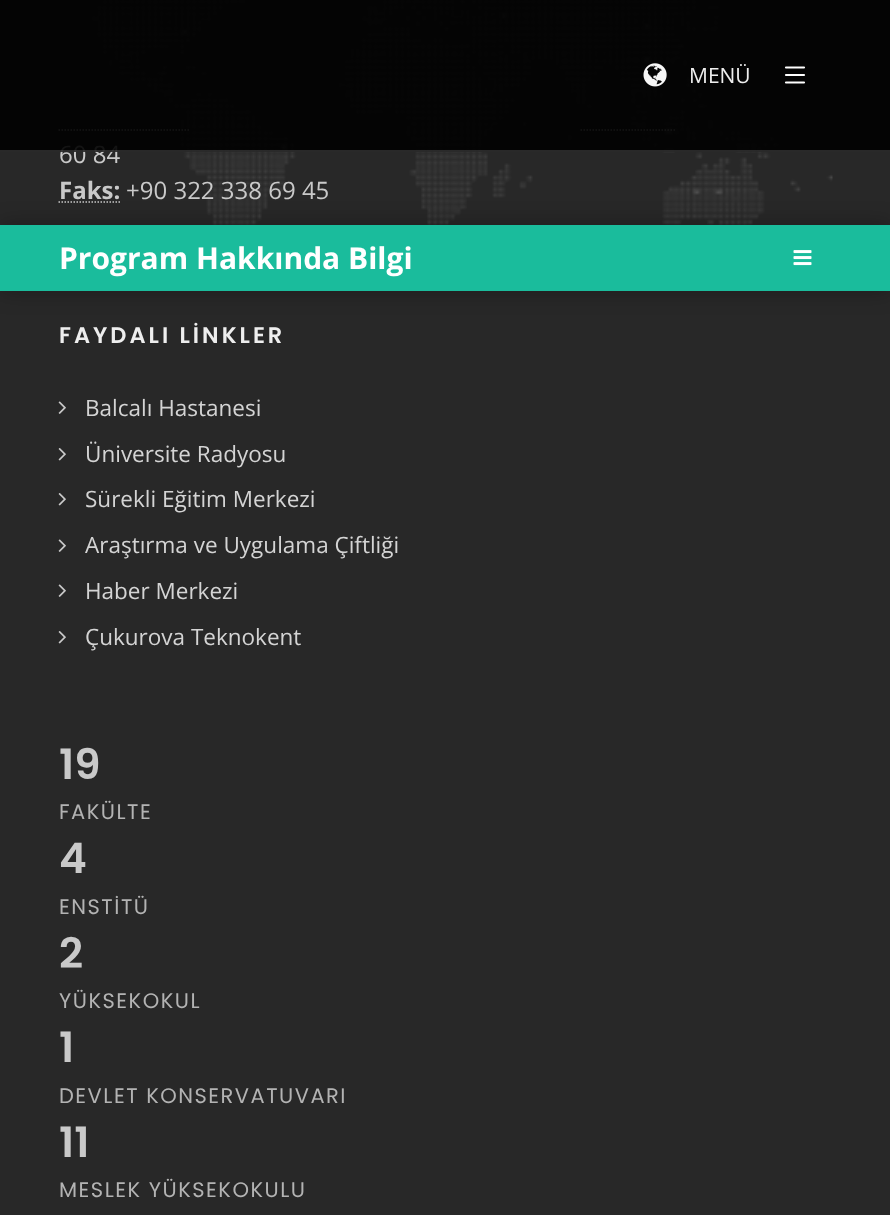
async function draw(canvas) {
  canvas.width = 890;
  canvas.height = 1215;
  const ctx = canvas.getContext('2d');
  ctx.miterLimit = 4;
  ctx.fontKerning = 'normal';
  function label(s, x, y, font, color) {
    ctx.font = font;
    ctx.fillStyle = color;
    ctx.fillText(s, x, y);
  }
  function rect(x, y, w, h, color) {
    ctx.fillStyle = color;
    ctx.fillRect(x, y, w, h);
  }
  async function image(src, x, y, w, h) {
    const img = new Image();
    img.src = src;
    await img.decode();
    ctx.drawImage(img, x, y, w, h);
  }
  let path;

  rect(0, 0, 890, 1215, '#282828');
  await image('assets/img2.png', 91, 0, 742, 225);
  path = new Path2D('M58.5 130H190');
  ctx.strokeStyle = '#ffffffbf';
  ctx.lineWidth = 1.5;
  ctx.setLineDash([1.5, 1.5]);
  ctx.stroke(path);
  path = new Path2D('M580.5 130H676.5');
  ctx.stroke(path);
  label('60 84', 59, 163, '24px Open Sans', '#c9c9c9');
  rect(0, 0, 890, 152, '#000000e6');
  rect(0, 150, 890, 2, '#ffffff26');
  await image('assets/img1.png', 643, 63, 24, 24);
  label('MENÜ', 689, 83, '21px Open Sans', '#eee');
  path = new Path2D('M786 67.5H804M786 75H804M804 82.5H786');
  ctx.strokeStyle = '#fff';
  ctx.lineWidth = 2.2;
  ctx.lineCap = 'round';
  ctx.setLineDash([]);
  ctx.stroke(path);
  label('Faks:', 59, 199, 'bold 24px Open Sans', '#c9c9c9');
  path = new Path2D('M58.5 202H120');
  ctx.strokeStyle = '#c9c9c9';
  ctx.lineWidth = 1.5;
  ctx.lineCap = 'butt';
  ctx.setLineDash([1.5, 1.5]);
  ctx.stroke(path);
  label('+90 322 338 69 45', 126, 199, '24px Open Sans', '#c9c9c9');
  ctx.letterSpacing = '3px';
  label('FAYDALI LİNKLER', 59, 343, '600 22.5px Poppins', '#eee');
  await image('assets/img3.png', 58, 401, 8, 13);
  ctx.letterSpacing = '0px';
  label('Balcalı Hastanesi', 85, 416, '22.5px Open Sans', '#d4d4d4');
  await image('assets/img4.png', 58, 448, 8, 13);
  label('Üniversite Radyosu', 85, 462, '22.5px Open Sans', '#d4d4d4');
  await image('assets/img4.png', 58, 493, 8, 13);
  label('Sürekli Eğitim Merkezi', 85, 507, '22.5px Open Sans', '#d4d4d4');
  await image('assets/img3.png', 58, 539, 8, 13);
  label('Araştırma ve Uygulama Çiftliği', 85, 553, '22.5px Open Sans', '#d4d4d4');
  await image('assets/img3.png', 58, 584, 8, 13);
  label('Haber Merkezi', 85, 599, '22.5px Open Sans', '#d4d4d4');
  await image('assets/img4.png', 58, 631, 8, 13);
  label('Çukurova Teknokent', 85, 645, '22.5px Open Sans', '#d4d4d4');
  label('19', 59, 779, '600 42px Poppins', '#c9c9c9');
  ctx.letterSpacing = '1.5px';
  label('FAKÜLTE', 59, 819, '21px Poppins', '#b3b3b3');
  ctx.letterSpacing = '0px';
  label('4', 59, 873, '600 42px Poppins', '#c9c9c9');
  ctx.letterSpacing = '1.5px';
  label('ENSTİTÜ', 59, 914, '21px Poppins', '#b3b3b3');
  ctx.letterSpacing = '0px';
  label('2', 59, 968, '600 42px Poppins', '#c9c9c9');
  ctx.letterSpacing = '1.5px';
  label('YÜKSEKOKUL', 59, 1008, '21px Poppins', '#b3b3b3');
  ctx.letterSpacing = '0px';
  label('1', 59, 1062, '600 42px Poppins', '#c9c9c9');
  ctx.letterSpacing = '1.5px';
  label('DEVLET KONSERVATUVARI', 59, 1103, '21px Poppins', '#b3b3b3');
  ctx.letterSpacing = '0px';
  label('11', 59, 1157, '600 42px Poppins', '#c9c9c9');
  ctx.letterSpacing = '1.5px';
  label('MESLEK YÜKSEKOKULU', 59, 1197, '21px Poppins', '#b3b3b3');
  ctx.fillStyle = '#0000004d';
  ctx.filter = 'blur(11px)';
  ctx.beginPath();
  ctx.rect(0, 225, 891, 66);
  ctx.fill();
  ctx.filter = 'none';
  rect(0, 225, 890, 66, '#1abc9c');
  ctx.letterSpacing = '0px';
  label('Program Hakkında Bilgi', 59, 269, 'bold 30px Open Sans', '#fff');
  await image('assets/img5.png', 793, 250, 19, 16);
}

draw(document.querySelector('canvas'));
